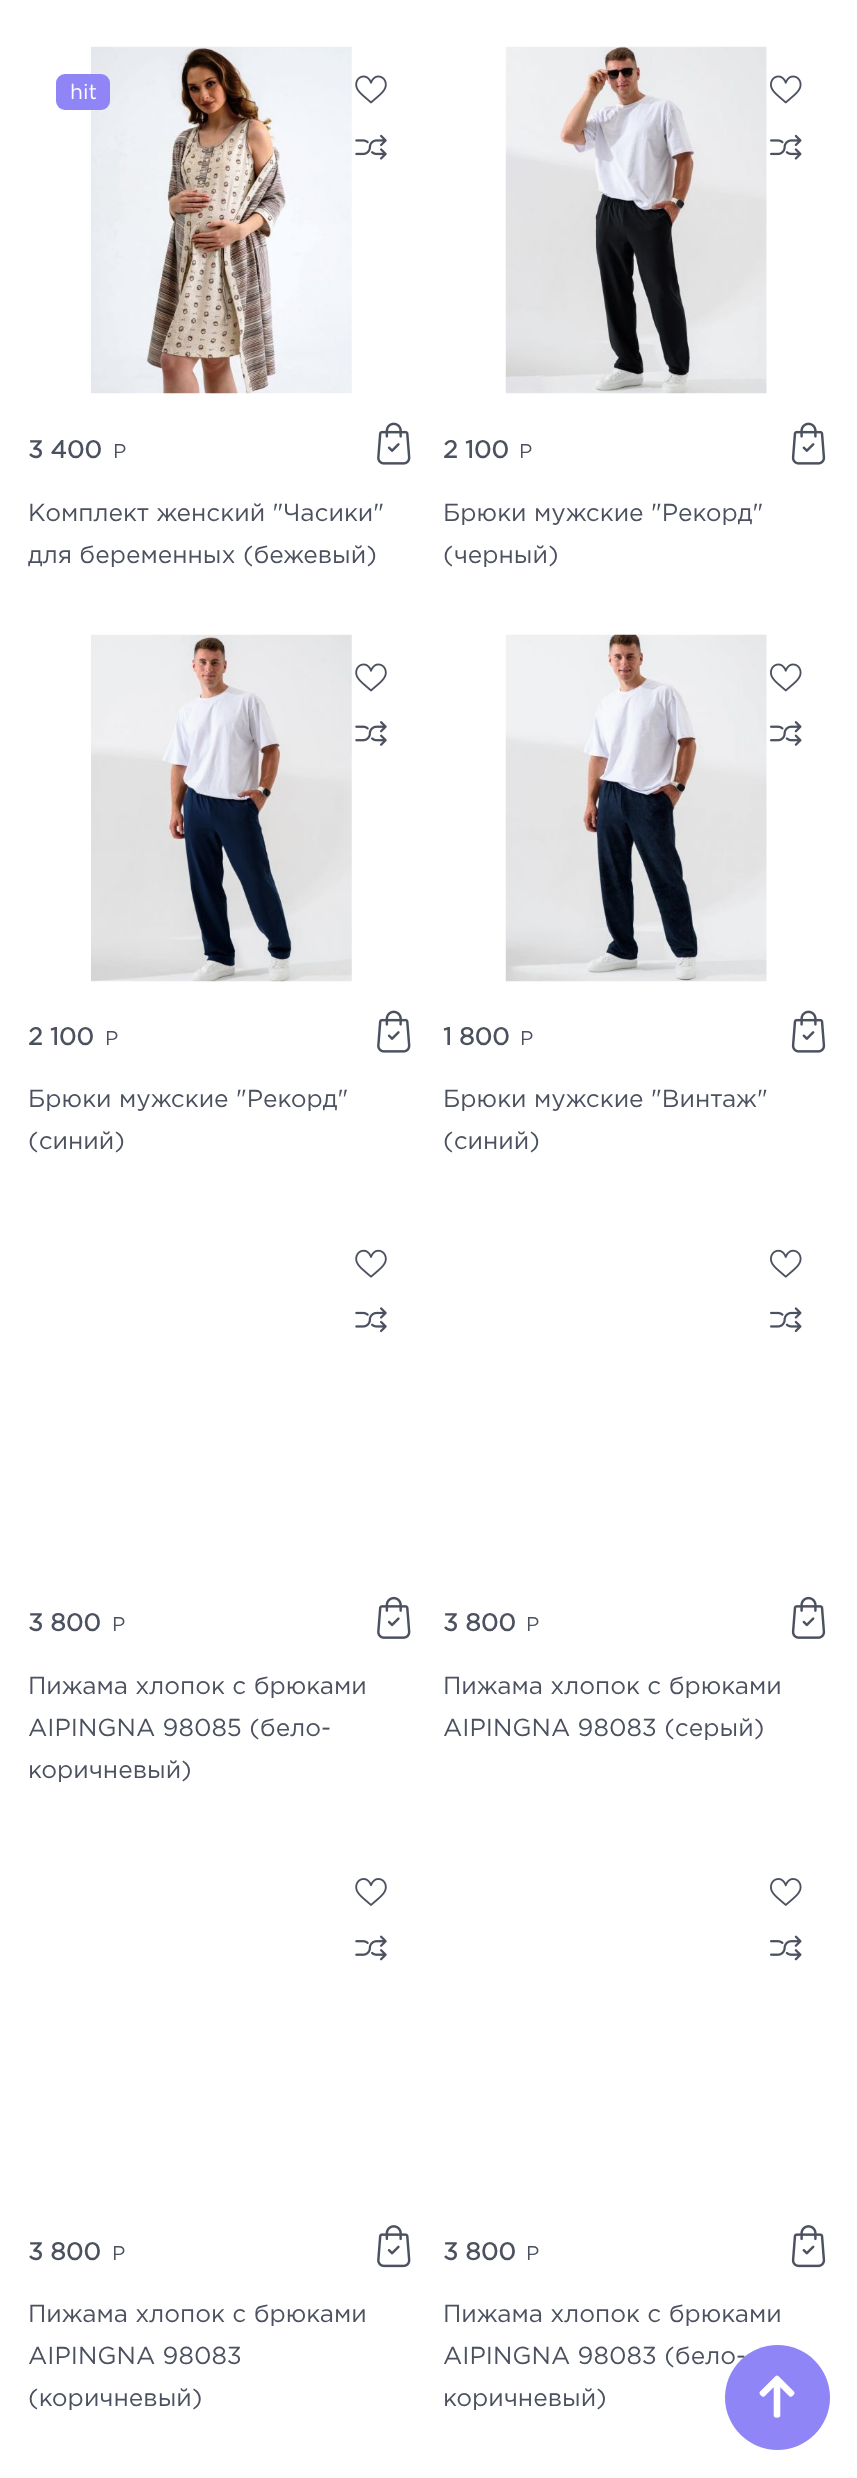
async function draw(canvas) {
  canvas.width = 857;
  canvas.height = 2478;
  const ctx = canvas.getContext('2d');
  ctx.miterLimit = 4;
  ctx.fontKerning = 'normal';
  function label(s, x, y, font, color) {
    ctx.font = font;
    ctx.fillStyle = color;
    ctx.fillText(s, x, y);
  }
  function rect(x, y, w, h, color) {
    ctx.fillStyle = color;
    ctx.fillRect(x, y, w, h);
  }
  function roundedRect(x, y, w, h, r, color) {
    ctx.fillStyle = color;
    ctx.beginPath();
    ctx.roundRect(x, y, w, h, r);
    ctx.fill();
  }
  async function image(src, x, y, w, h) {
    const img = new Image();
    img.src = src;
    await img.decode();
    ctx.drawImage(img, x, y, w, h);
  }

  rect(0, 0, 857, 2478, '#fff');
  await image('assets/img1.png', 91, 46, 261, 348);
  roundedRect(56, 74, 54, 36, 9, '#9085f7');
  label('hit', 70, 99, '21px Gotham', '#fff');
  await image('assets/img2.png', 355, 75, 32, 29);
  await image('assets/img3.png', 355, 134, 32, 26);
  label('3 400', 28, 458, 'bold 24.5px Gotham', '#4c515f');
  label('Р', 113, 458, '20px Gotham', '#4c515f');
  await image('assets/img4.png', 377, 422, 34, 43);
  label('Комплект женский "Часики"', 28, 521, '24.5px Gotham', '#4c515f');
  label('для беременных (бежевый)', 28, 563, '24.5px Gotham', '#4c515f');
  await image('assets/img5.png', 505, 46, 262, 348);
  await image('assets/img6.png', 770, 75, 32, 29);
  await image('assets/img7.png', 770, 134, 32, 26);
  label('2 100', 443, 458, 'bold 24.5px Gotham', '#4c515f');
  label('Р', 519, 458, '20px Gotham', '#4c515f');
  await image('assets/img8.png', 791, 422, 35, 43);
  label('Брюки мужские "Рекорд"', 443, 521, '24.5px Gotham', '#4c515f');
  label('(черный)', 443, 563, '24.5px Gotham', '#4c515f');
  await image('assets/img9.png', 91, 634, 261, 348);
  await image('assets/img2.png', 355, 663, 32, 29);
  await image('assets/img10.png', 355, 721, 32, 25);
  label('2 100', 28, 1045, 'bold 24.5px Gotham', '#4c515f');
  label('Р', 105, 1045, '20px Gotham', '#4c515f');
  await image('assets/img4.png', 377, 1010, 34, 43);
  label('Брюки мужские "Рекорд"', 28, 1107, '24.5px Gotham', '#4c515f');
  label('(синий)', 28, 1149, '24.5px Gotham', '#4c515f');
  await image('assets/img11.png', 505, 634, 262, 348);
  await image('assets/img6.png', 770, 663, 32, 29);
  await image('assets/img12.png', 770, 721, 32, 25);
  label('1 800', 443, 1045, 'bold 24.5px Gotham', '#4c515f');
  label('Р', 520, 1045, '20px Gotham', '#4c515f');
  await image('assets/img8.png', 791, 1010, 35, 43);
  label('Брюки мужские "Винтаж"', 443, 1107, '24.5px Gotham', '#4c515f');
  label('(синий)', 443, 1149, '24.5px Gotham', '#4c515f');
  await image('assets/img13.png', 355, 1249, 32, 29);
  await image('assets/img14.png', 355, 1307, 32, 26);
  label('3 800', 28, 1631, 'bold 24.5px Gotham', '#4c515f');
  label('Р', 112, 1631, '20px Gotham', '#4c515f');
  await image('assets/img15.png', 377, 1596, 34, 43);
  label('Пижама хлопок с брюками', 28, 1694, '24.5px Gotham', '#4c515f');
  label('AIPINGNA 98085 (бело-', 28, 1736, '24.5px Gotham', '#4c515f');
  label('коричневый)', 28, 1778, '24.5px Gotham', '#4c515f');
  await image('assets/img16.png', 770, 1249, 32, 29);
  await image('assets/img17.png', 770, 1307, 32, 26);
  label('3 800', 443, 1631, 'bold 24.5px Gotham', '#4c515f');
  label('Р', 526, 1631, '20px Gotham', '#4c515f');
  await image('assets/img18.png', 791, 1596, 35, 43);
  label('Пижама хлопок с брюками', 443, 1694, '24.5px Gotham', '#4c515f');
  label('AIPINGNA 98083 (серый)', 443, 1736, '24.5px Gotham', '#4c515f');
  await image('assets/img19.png', 355, 1878, 32, 28);
  await image('assets/img20.png', 355, 1935, 32, 26);
  label('3 800', 28, 2260, 'bold 24.5px Gotham', '#4c515f');
  label('Р', 112, 2260, '20px Gotham', '#4c515f');
  await image('assets/img21.png', 377, 2225, 34, 43);
  label('Пижама хлопок с брюками', 28, 2322, '24.5px Gotham', '#4c515f');
  label('AIPINGNA 98083', 28, 2364, '24.5px Gotham', '#4c515f');
  label('(коричневый)', 28, 2406, '24.5px Gotham', '#4c515f');
  await image('assets/img22.png', 770, 1878, 32, 28);
  await image('assets/img23.png', 770, 1935, 32, 26);
  label('3 800', 443, 2260, 'bold 24.5px Gotham', '#4c515f');
  label('Р', 526, 2260, '20px Gotham', '#4c515f');
  await image('assets/img24.png', 791, 2225, 35, 43);
  label('Пижама хлопок с брюками', 443, 2322, '24.5px Gotham', '#4c515f');
  label('AIPINGNA 98083 (бело-', 443, 2364, '24.5px Gotham', '#4c515f');
  label('коричневый)', 443, 2406, '24.5px Gotham', '#4c515f');
  ctx.fillStyle = '#9085f7';
  ctx.beginPath();
  ctx.arc(777.5, 2397.5, 52.5, 0, 2 * Math.PI);
  ctx.fill();
  await image('assets/img25.png', 759, 2375, 36, 43);
}

draw(document.querySelector('canvas'));
